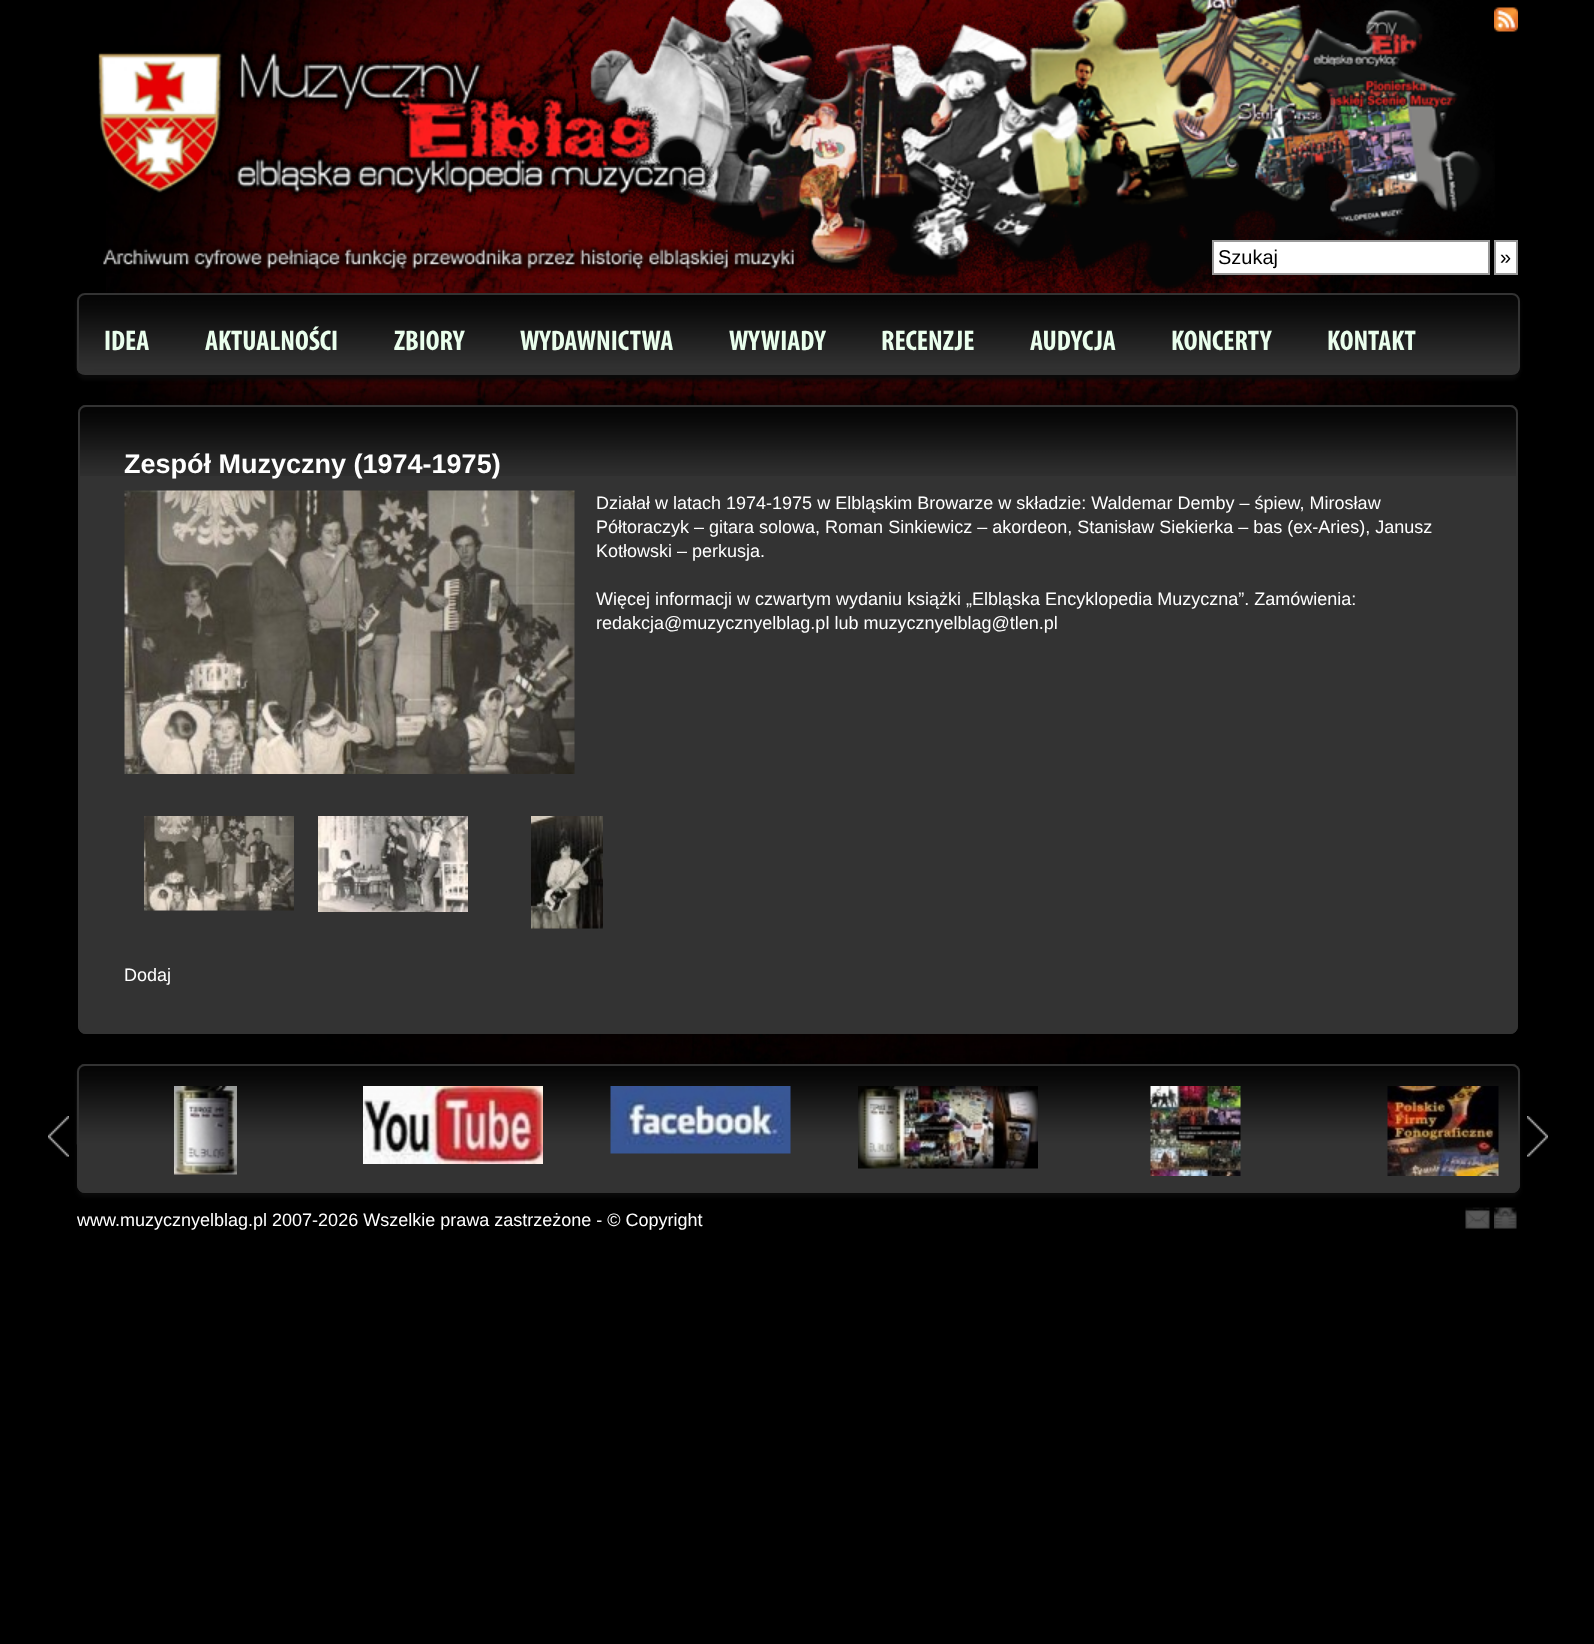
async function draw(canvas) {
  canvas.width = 1594;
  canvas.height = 1644;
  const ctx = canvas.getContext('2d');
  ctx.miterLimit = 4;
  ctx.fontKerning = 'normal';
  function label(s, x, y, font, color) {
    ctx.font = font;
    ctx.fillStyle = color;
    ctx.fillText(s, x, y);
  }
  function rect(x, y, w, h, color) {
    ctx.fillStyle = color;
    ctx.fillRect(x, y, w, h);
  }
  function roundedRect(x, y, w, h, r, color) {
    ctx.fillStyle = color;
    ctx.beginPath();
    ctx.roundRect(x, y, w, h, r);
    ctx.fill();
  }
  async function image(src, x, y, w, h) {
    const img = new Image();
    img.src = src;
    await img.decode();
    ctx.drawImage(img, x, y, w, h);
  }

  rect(0, 0, 1594, 1644, '#000');
  await image('assets/img1.png', 106, 0, 1366, 1064);
  await image('assets/img2.png', 572, 0, 923, 293);
  await image('assets/img3.png', 1494, 7, 24, 25);
  await image('assets/img4.png', 98, 45, 616, 157);
  await image('assets/img5.png', 103, 245, 697, 31);
  ctx.fillStyle = '#fff';
  ctx.beginPath();
  ctx.rect(1213, 241, 276, 33);
  ctx.fill();
  ctx.strokeStyle = '#999';
  ctx.lineWidth = 2;
  ctx.stroke();
  label('Szukaj', 1218, 264, '20px Liberation Sans', '#000');
  ctx.fillStyle = '#fff';
  ctx.beginPath();
  ctx.rect(1495, 241, 22, 33);
  ctx.fill();
  ctx.stroke();
  label('»', 1500, 264, '20px Liberation Sans', '#000');
  ctx.fillStyle = '#0a0a0a';
  ctx.filter = 'blur(2px)';
  ctx.beginPath();
  ctx.roundRect(77, 297, 1443, 83, 8);
  ctx.fill();
  ctx.filter = 'none';
  await image('assets/img6.png', 76, 294, 1444, 80);
  ctx.beginPath();
  ctx.roundRect(78, 294, 1441, 80, 7);
  ctx.strokeStyle = '#333';
  ctx.stroke();
  label('IDEA', 104, 350, 'bold 28.5px Myriad', '#eaffed');
  label('AKTUALNOŚCI', 205, 350, 'bold 28.5px Myriad', '#eaffed');
  label('ZBIORY', 394, 350, 'bold 28.5px Myriad', '#eaffed');
  label('WYDAWNICTWA', 520, 350, 'bold 28.5px Myriad', '#eaffed');
  label('WYWIADY', 729, 350, 'bold 28.5px Myriad', '#eaffed');
  label('RECENZJE', 881, 350, 'bold 28.5px Myriad', '#eaffed');
  label('AUDYCJA', 1030, 350, 'bold 28.5px Myriad', '#eaffed');
  label('KONCERTY', 1171, 350, 'bold 28.5px Myriad', '#eaffed');
  label('KONTAKT', 1327, 350, 'bold 28.5px Myriad', '#eaffed');
  ctx.fillStyle = '#000';
  ctx.filter = 'blur(15px)';
  ctx.beginPath();
  ctx.roundRect(78, 405, 1440, 629, 8);
  ctx.fill();
  ctx.filter = 'none';
  roundedRect(78, 405, 1440, 629, 8, '#333');
  await image('assets/img7.png', 78, 406, 1440, 70);
  ctx.beginPath();
  ctx.roundRect(79, 406, 1438, 627, 7);
  ctx.stroke();
  label('Zespół Muzyczny (1974-1975)', 124, 473, 'bold 27px Liberation Sans', '#fff');
  await image('assets/img8.png', 124, 490, 451, 284);
  label('Działał w latach 1974-1975 w Elbląskim Browarze w składzie: Waldemar Demby – śpiew, Mirosław', 596, 509, '18px Liberation Sans', '#fff');
  label('Półtoraczyk – gitara solowa, Roman Sinkiewicz – akordeon, Stanisław Siekierka – bas (ex-Aries), Janusz', 596, 533, '18px Liberation Sans', '#fff');
  label('Kotłowski – perkusja.', 596, 557, '18px Liberation Sans', '#fff');
  label('Więcej informacji w czwartym wydaniu książki „Elbląska Encyklopedia Muzyczna”. Zamówienia:', 596, 605, '18px Liberation Sans', '#fff');
  label('redakcja@muzycznyelblag.pl lub muzycznyelblag@tlen.pl', 596, 629, '18px Liberation Sans', '#fff');
  await image('assets/img9.png', 144, 816, 150, 95);
  await image('assets/img10.png', 318, 816, 150, 96);
  await image('assets/img11.png', 531, 816, 72, 113);
  label('Dodaj', 124, 981, '18px Liberation Sans', '#fff');
  ctx.fillStyle = '#0a0a0a';
  ctx.filter = 'blur(2px)';
  ctx.beginPath();
  ctx.roundRect(77, 1068, 1443, 129, 8);
  ctx.fill();
  ctx.filter = 'none';
  roundedRect(77, 1064, 1443, 129, 8, '#333');
  await image('assets/img12.png', 76, 1065, 1444, 80);
  ctx.beginPath();
  ctx.roundRect(78, 1065, 1441, 127, 7);
  ctx.stroke();
  await image('assets/img13.png', 48, 1116, 21, 41);
  await image('assets/img14.png', 174, 1086, 63, 89);
  await image('assets/img15.png', 363, 1086, 180, 78);
  await image('assets/img16.png', 610, 1086, 181, 68);
  await image('assets/img17.png', 858, 1086, 180, 83);
  await image('assets/img18.png', 1150, 1086, 91, 90);
  await image('assets/img19.png', 1387, 1086, 112, 90);
  await image('assets/img20.png', 1527, 1116, 21, 41);
  label('www.muzycznyelblag.pl 2007-2026 Wszelkie prawa zastrzeżone - © Copyright', 77, 1226, '18px Liberation Sans', '#fff');
  await image('assets/img21.png', 1465, 1207, 25, 22);
  await image('assets/img22.png', 1494, 1207, 23, 22);
}

draw(document.querySelector('canvas'));
